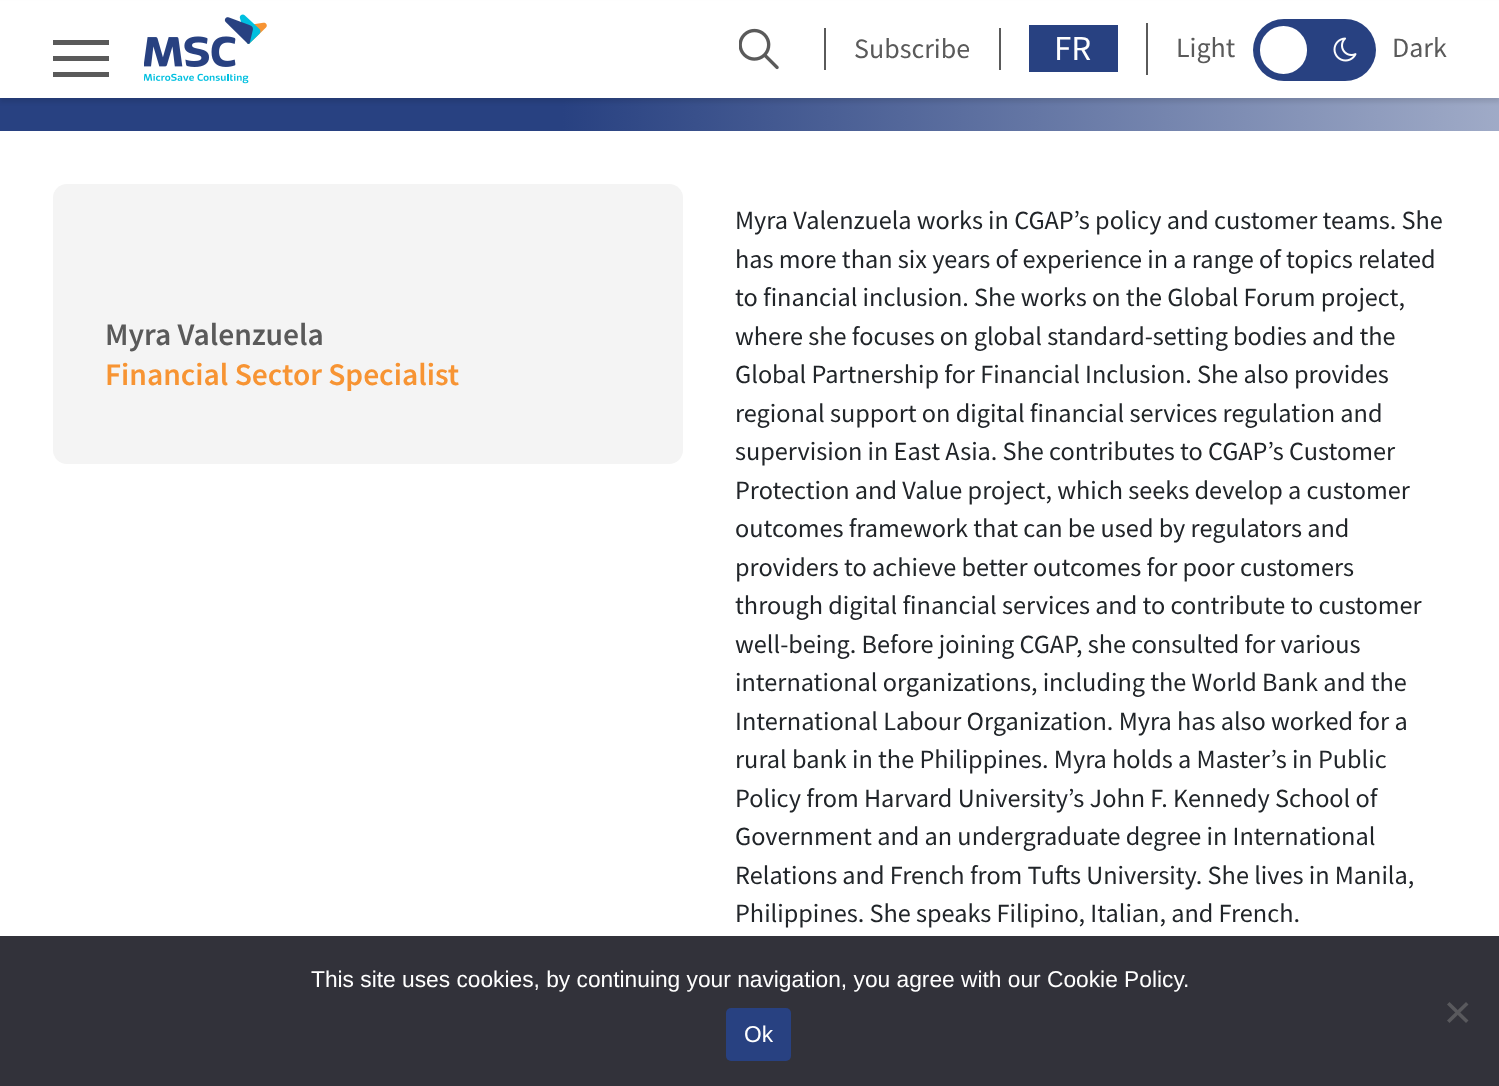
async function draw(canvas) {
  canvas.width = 1499;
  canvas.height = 1086;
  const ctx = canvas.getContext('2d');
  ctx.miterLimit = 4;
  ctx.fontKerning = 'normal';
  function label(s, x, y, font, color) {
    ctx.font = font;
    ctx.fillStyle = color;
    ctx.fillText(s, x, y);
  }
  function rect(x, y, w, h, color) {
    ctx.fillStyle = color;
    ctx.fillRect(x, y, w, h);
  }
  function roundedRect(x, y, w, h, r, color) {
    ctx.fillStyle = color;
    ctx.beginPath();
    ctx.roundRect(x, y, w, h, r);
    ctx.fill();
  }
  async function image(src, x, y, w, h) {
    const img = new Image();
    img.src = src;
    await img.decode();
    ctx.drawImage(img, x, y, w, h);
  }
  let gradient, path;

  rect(0, 0, 1499, 1086, '#fff');
  gradient = ctx.createLinearGradient(0, -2.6, 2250, -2.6);
  gradient.addColorStop(0.25, '#284181');
  gradient.addColorStop(1, '#fff');
  ctx.fillStyle = gradient;
  ctx.fillRect(0, 98, 1499, 33);
  ctx.fillStyle = '#0000001a';
  ctx.filter = 'blur(2px)';
  ctx.beginPath();
  ctx.rect(0, 4, 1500, 98);
  ctx.fill();
  ctx.filter = 'none';
  rect(0, 1, 1499, 97, '#fff');
  rect(53, 40, 56, 5, '#5a5a5a');
  rect(53, 56, 56, 5, '#5a5a5a');
  rect(53, 72, 56, 5, '#5a5a5a');
  await image('assets/img1.png', 144, 14, 123, 70);
  rect(824, 28, 2, 42, '#5a5a5a');
  await image('assets/img2.png', 739, 28, 40, 42);
  rect(999, 28, 2, 42, '#5a5a5a');
  label('Subscribe', 854, 58, '28px Source Sans Pro', '#5a5a5a');
  rect(1146, 23, 2, 52, '#5a5a5a');
  rect(1029, 25, 89, 47, '#284181');
  label('FR', 1054, 60, '35px Source Sans Pro', '#fff');
  label('Light', 1176, 57, '28px Source Sans Pro', '#5a5a5a');
  roundedRect(1253, 19, 123, 62, 31, '#284181');
  roundedRect(1260, 26, 47, 48, 23.5, '#fff');
  await image('assets/img3.png', 1333, 37, 24, 25);
  label('Dark', 1392, 57, '28px Source Sans Pro', '#5a5a5a');
  roundedRect(53, 184, 630, 280, 14, '#f4f4f4');
  label('Myra Valenzuela', 105, 345, '600 31.5px Source Sans Pro', '#5a5a5a');
  label('Financial Sector Specialist', 105, 385, '600 31.5px Source Sans Pro', '#f79433');
  label('Myra Valenzuela works in CGAP’s policy and customer teams. She', 735, 229, '26.25px Source Sans Pro', '#212529');
  label('has more than six years of experience in a range of topics related', 735, 268, '26.25px Source Sans Pro', '#212529');
  label('to financial inclusion. She works on the Global Forum project,', 735, 306, '26.25px Source Sans Pro', '#212529');
  label('where she focuses on global standard-setting bodies and the', 735, 345, '26.25px Source Sans Pro', '#212529');
  label('Global Partnership for Financial Inclusion. She also provides', 735, 383, '26.25px Source Sans Pro', '#212529');
  label('regional support on digital financial services regulation and', 735, 422, '26.25px Source Sans Pro', '#212529');
  label('supervision in East Asia. She contributes to CGAP’s Customer', 735, 460, '26.25px Source Sans Pro', '#212529');
  label('Protection and Value project, which seeks develop a customer', 735, 499, '26.25px Source Sans Pro', '#212529');
  label('outcomes framework that can be used by regulators and', 735, 537, '26.25px Source Sans Pro', '#212529');
  label('providers to achieve better outcomes for poor customers', 735, 576, '26.25px Source Sans Pro', '#212529');
  label('through digital financial services and to contribute to customer', 735, 614, '26.25px Source Sans Pro', '#212529');
  label('well-being. Before joining CGAP, she consulted for various', 735, 653, '26.25px Source Sans Pro', '#212529');
  label('international organizations, including the World Bank and the', 735, 691, '26.25px Source Sans Pro', '#212529');
  label('International Labour Organization. Myra has also worked for a', 735, 730, '26.25px Source Sans Pro', '#212529');
  label('rural bank in the Philippines. Myra holds a Master’s in Public', 735, 768, '26.25px Source Sans Pro', '#212529');
  label('Policy from Harvard University’s John F. Kennedy School of', 735, 807, '26.25px Source Sans Pro', '#212529');
  label('Government and an undergraduate degree in International', 735, 845, '26.25px Source Sans Pro', '#212529');
  label('Relations and French from Tufts University. She lives in Manila,', 735, 884, '26.25px Source Sans Pro', '#212529');
  label('Philippines. She speaks Filipino, Italian, and French.', 735, 922, '26.25px Source Sans Pro', '#212529');
  rect(0, 936, 1499, 150, '#32323a');
  label('This site uses cookies, by continuing your navigation, you agree with our Cookie Policy.', 311, 987, '22.75px Liberation Sans', '#fff');
  ctx.fillStyle = '#59595d';
  path = new Path2D('M1466 1002L1468.5 1004.5L1449.5 1023L1447 1020.5Z');
  ctx.fill(path);
  path = new Path2D('M1447 1004.5L1449.5 1002L1468.5 1020.5L1466 1023Z');
  ctx.fill(path);
  roundedRect(726, 1008, 65, 53, 5, '#284181');
  label('Ok', 744, 1042, '22.75px Liberation Sans', '#fff');
}

draw(document.querySelector('canvas'));
